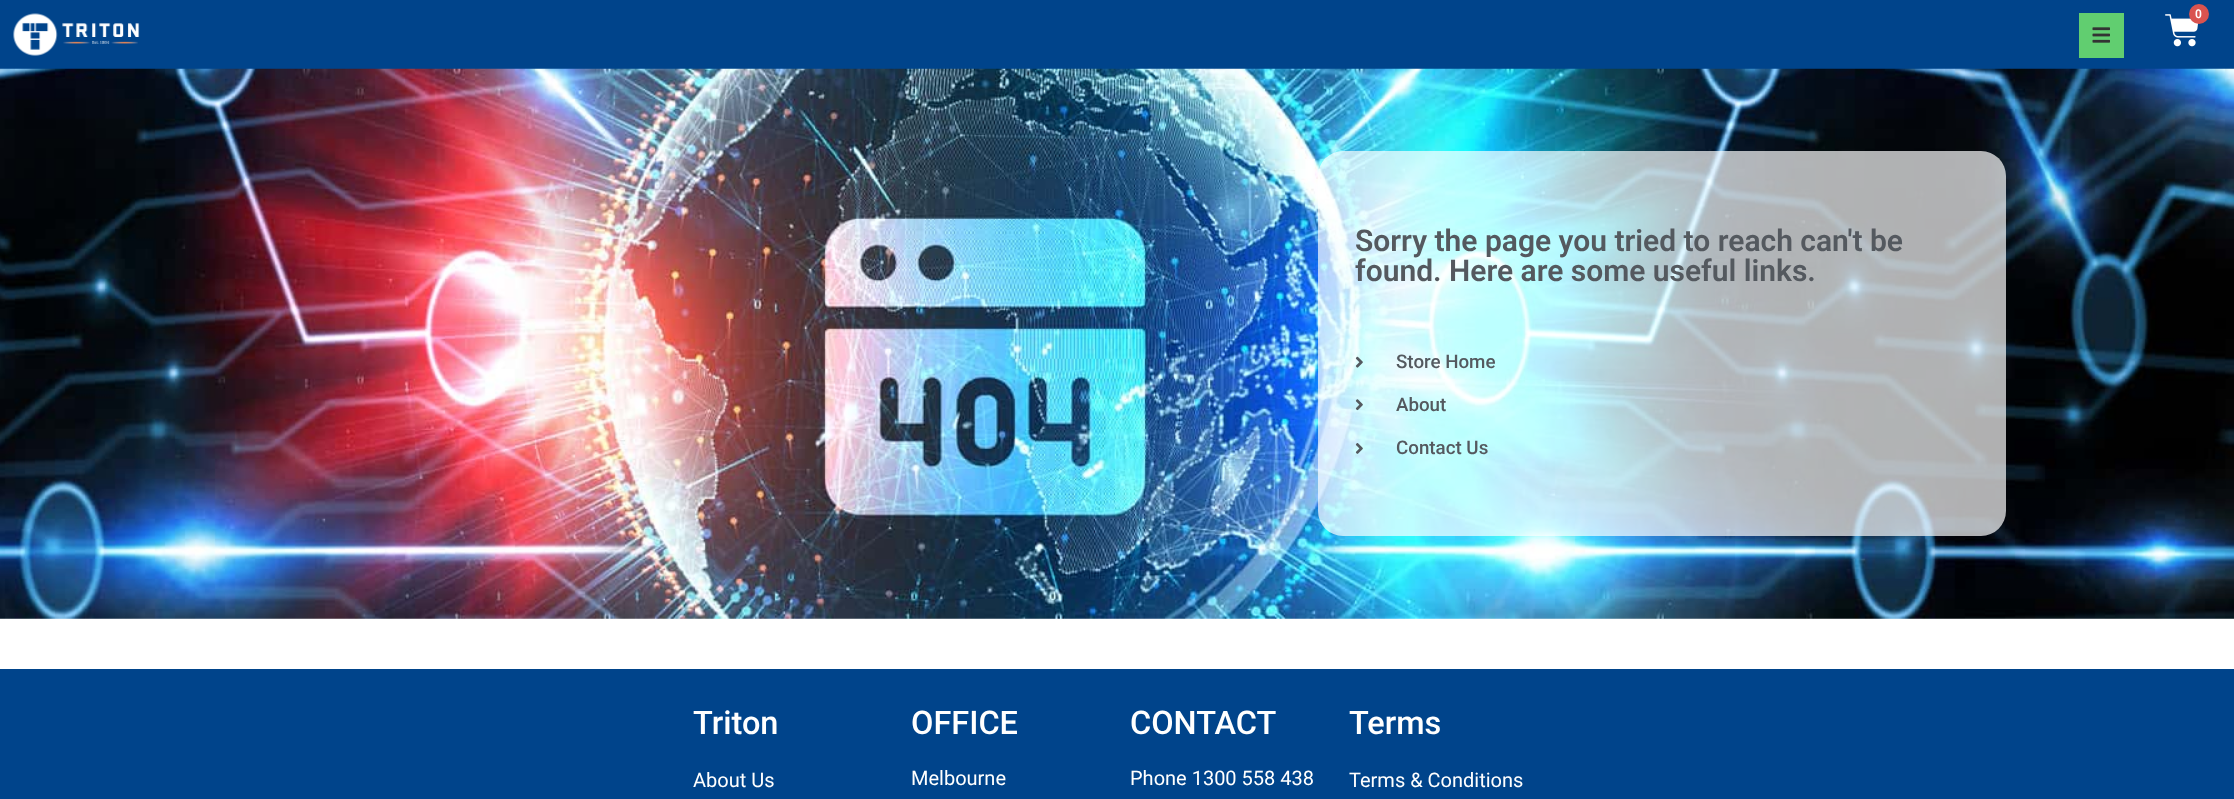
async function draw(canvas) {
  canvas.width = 2234;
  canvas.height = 799;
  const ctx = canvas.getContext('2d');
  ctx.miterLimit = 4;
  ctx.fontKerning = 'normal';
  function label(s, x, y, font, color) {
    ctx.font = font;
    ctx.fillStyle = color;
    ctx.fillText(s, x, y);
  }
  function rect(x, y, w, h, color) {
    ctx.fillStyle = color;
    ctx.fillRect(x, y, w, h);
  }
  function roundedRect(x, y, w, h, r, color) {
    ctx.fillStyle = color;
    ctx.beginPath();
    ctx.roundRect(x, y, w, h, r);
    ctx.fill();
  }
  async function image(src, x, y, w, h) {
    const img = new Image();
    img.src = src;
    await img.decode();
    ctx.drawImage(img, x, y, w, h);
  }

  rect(0, 0, 2234, 799, '#fff');
  rect(0, 0, 2234, 69, '#00448b');
  await image('assets/img1.png', 13, 13, 127, 43);
  rect(2079, 13, 45, 45, '#61ce70');
  await image('assets/img2.png', 2092, 27, 18, 16);
  await image('assets/img3.png', 2165, 14, 34, 33);
  ctx.fillStyle = '#d9534f';
  ctx.beginPath();
  ctx.arc(2199, 14, 10, 0, 2 * Math.PI);
  ctx.fill();
  label('0', 2195, 18, '600 12px Roboto', '#fff');
  await image('assets/img4.png', 0, 68, 2234, 551);
  roundedRect(1318, 151, 688, 385, 25, '#ffffffb0');
  label('Sorry the page you tried to reach can\'t be', 1355, 251, '600 30px Roboto', '#54595f');
  label('found. Here are some useful links.', 1355, 281, '600 30px Roboto', '#54595f');
  await image('assets/img5.png', 1355, 356, 8, 12);
  label('Store Home', 1396, 368, '500 18.75px Roboto', '#54595f');
  await image('assets/img6.png', 1355, 399, 8, 12);
  label('About', 1396, 411, '500 18.75px Roboto', '#54595f');
  await image('assets/img7.png', 1355, 443, 8, 11);
  label('Contact Us', 1396, 454, '500 18.75px Roboto', '#54595f');
  rect(0, 669, 2234, 130, '#00448b');
  label('Triton', 693, 734, '500 32.5px Roboto', '#fff');
  label('About Us', 693, 787, '20px Roboto', '#fff');
  label('OFFICE', 911, 734, '500 32.5px Roboto', '#fff');
  label('Melbourne', 911, 785, '20px Roboto', '#fff');
  label('CONTACT', 1130, 734, '500 32.5px Roboto', '#fff');
  label('Phone 1300 558 438', 1130, 785, '20px Roboto', '#fff');
  label('Terms', 1349, 734, '500 32.5px Roboto', '#fff');
  label('Terms & Conditions', 1349, 787, '20px Roboto', '#fff');
}

draw(document.querySelector('canvas'));
